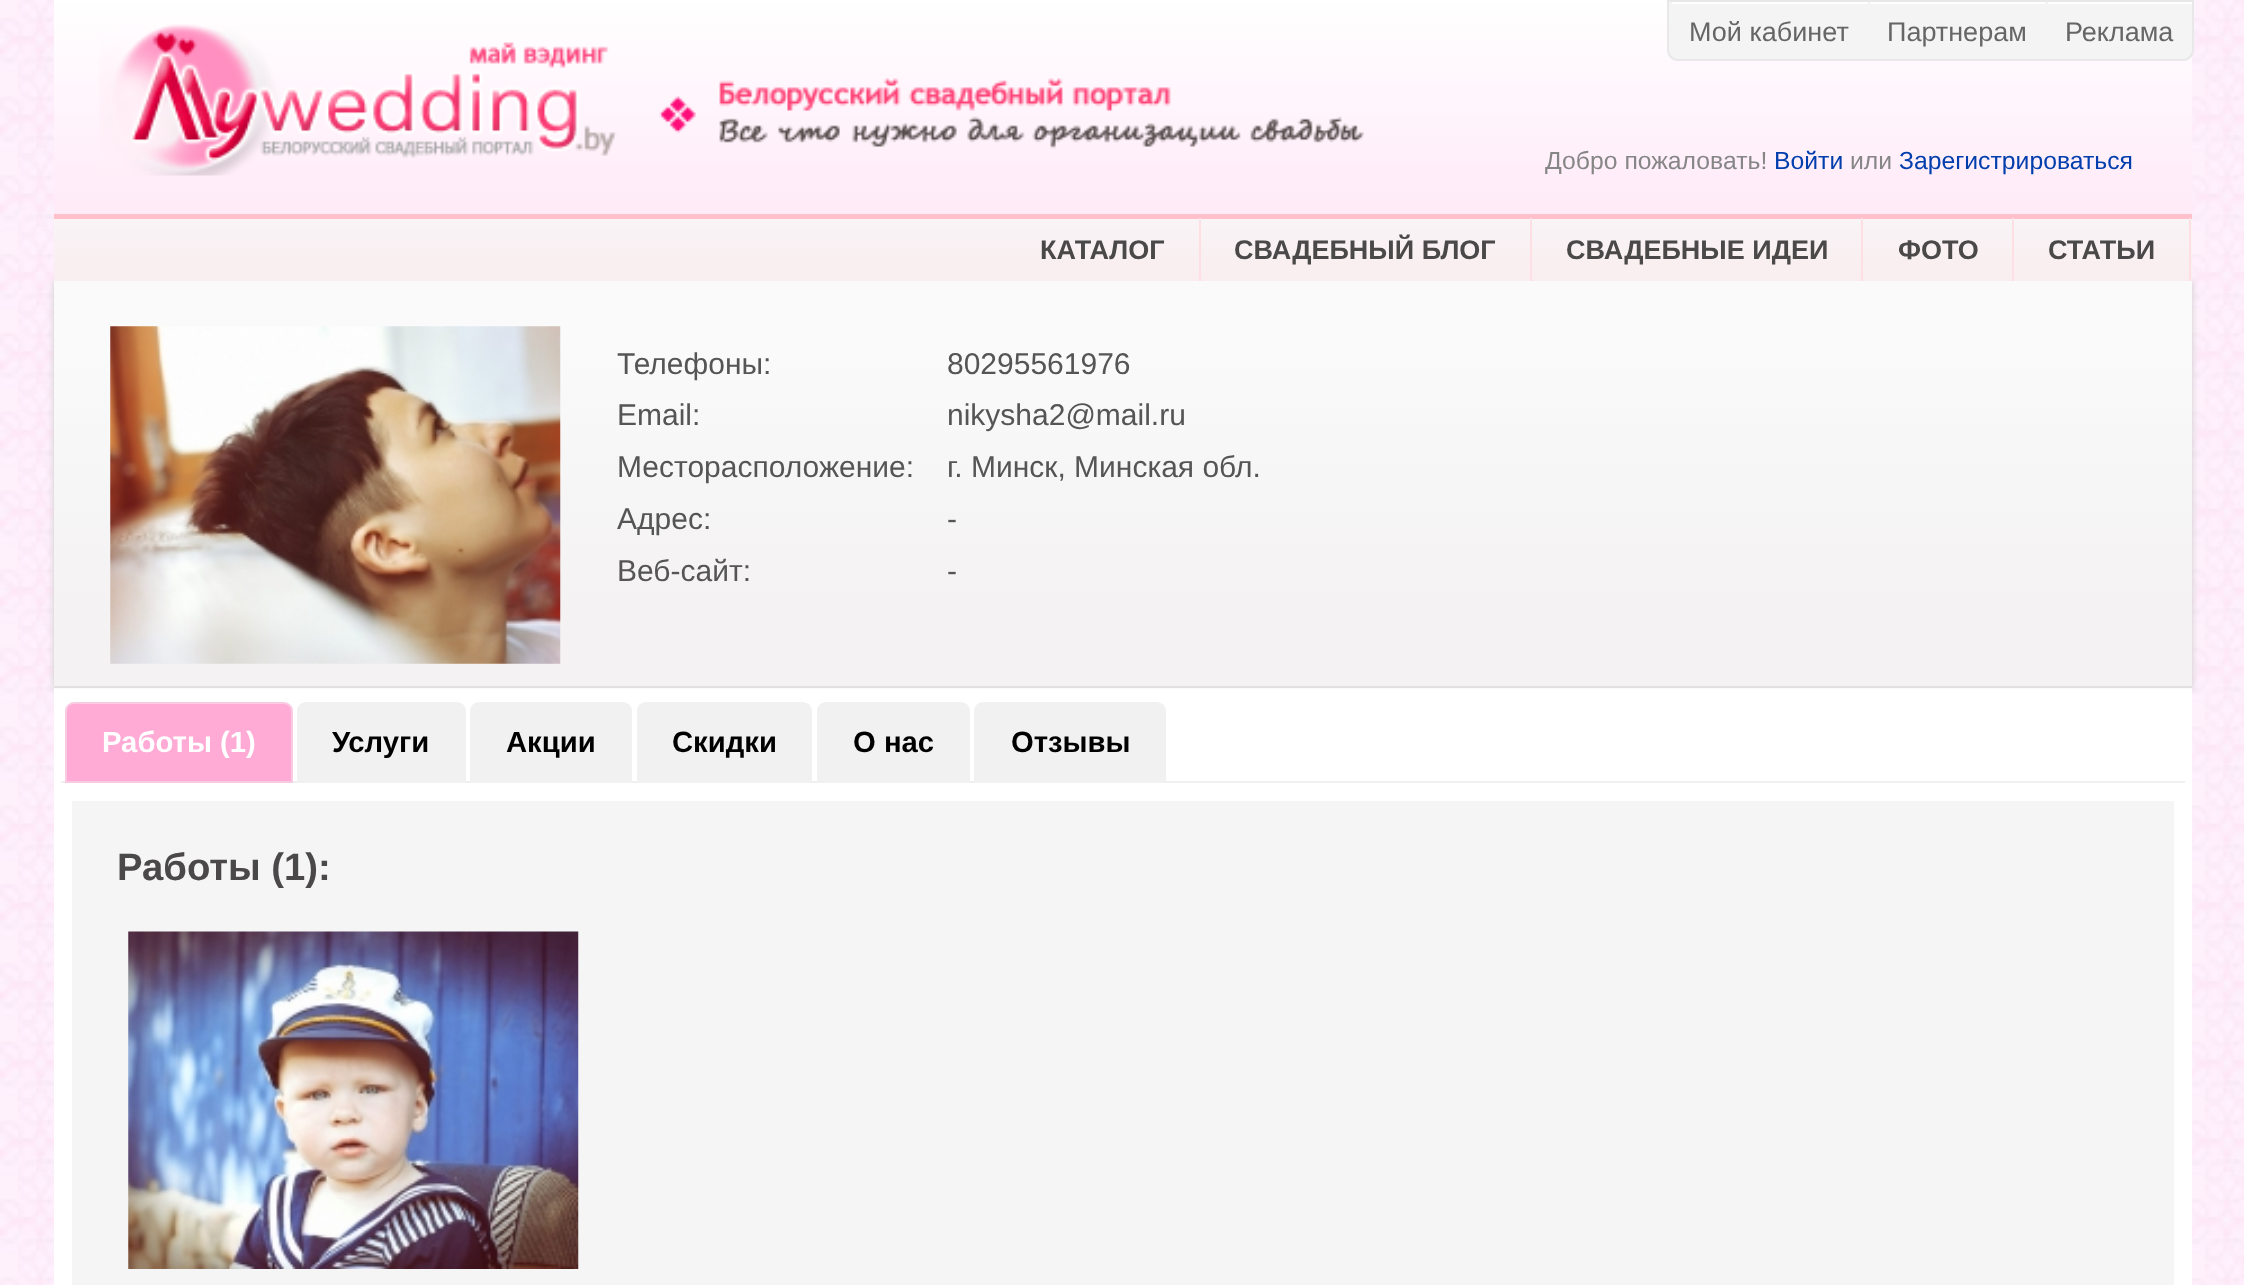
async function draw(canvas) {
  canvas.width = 2244;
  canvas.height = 1285;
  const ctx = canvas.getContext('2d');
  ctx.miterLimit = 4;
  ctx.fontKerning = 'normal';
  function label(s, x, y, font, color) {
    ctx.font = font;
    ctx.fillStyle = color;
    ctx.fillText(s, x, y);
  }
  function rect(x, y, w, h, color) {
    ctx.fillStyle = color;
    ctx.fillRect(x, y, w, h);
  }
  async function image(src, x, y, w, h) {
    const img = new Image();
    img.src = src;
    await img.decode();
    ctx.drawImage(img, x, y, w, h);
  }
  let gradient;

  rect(0, 0, 2244, 1285, '#fff');
  await image('assets/img1.png', 0, 0, 2244, 1285);
  gradient = ctx.createLinearGradient(1123, 0, 1123, 214);
  gradient.addColorStop(0, '#fff');
  gradient.addColorStop(1, '#ffeaf8');
  ctx.fillStyle = gradient;
  ctx.fillRect(54, 0, 2138, 214);
  await image('assets/img2.png', 99, 24, 518, 152);
  await image('assets/img3.png', 659, 78, 705, 71);
  ctx.fillStyle = '#f5f4f4';
  ctx.beginPath();
  ctx.roundRect(1668, 1, 525, 59, [0, 0, 10, 10]);
  ctx.fill();
  ctx.strokeStyle = '#e9e8e8';
  ctx.lineWidth = 2;
  ctx.stroke();
  rect(1672, 2, 196, 2, '#fff');
  label('Мой кабинет', 1689, 41, '27px Liberation Sans', '#666');
  rect(1870, 2, 175, 2, '#fff');
  label('Партнерам', 1887, 41, '27px Liberation Sans', '#666');
  rect(2048, 2, 144, 2, '#fff');
  label('Реклама', 2065, 41, '27px Liberation Sans', '#666');
  label('Добро пожаловать!', 1545, 169, '24.75px Liberation Sans', '#878686');
  label('Войти', 1774, 169, '24.75px Liberation Sans', '#003dad');
  label('или', 1850, 169, '24.75px Liberation Sans', '#878686');
  label('Зарегистрироваться', 1899, 169, '24.75px Liberation Sans', '#003dad');
  ctx.fillStyle = '#ccc';
  ctx.filter = 'blur(3.5px)';
  ctx.beginPath();
  ctx.rect(54, 281, 2138, 408);
  ctx.fill();
  ctx.filter = 'none';
  gradient = ctx.createLinearGradient(1123, 218, 1123, 281);
  gradient.addColorStop(0, '#f9f4f6');
  gradient.addColorStop(1, '#f9edef');
  ctx.fillStyle = gradient;
  ctx.fillRect(54, 219, 2138, 62);
  rect(54, 214, 2138, 5, '#ffc0cb');
  rect(1199, 218, 2, 63, '#fedfe4');
  label('КАТАЛОГ', 1040, 259, 'bold 27px Liberation Sans', '#4a4848');
  rect(1530, 218, 2, 63, '#fedfe4');
  label('СВАДЕБНЫЙ БЛОГ', 1234, 259, 'bold 27px Liberation Sans', '#4a4848');
  rect(1861, 218, 2, 63, '#fedfe4');
  label('СВАДЕБНЫЕ ИДЕИ', 1566, 259, 'bold 27px Liberation Sans', '#4a4848');
  rect(2012, 218, 2, 63, '#fedfe4');
  label('ФОТО', 1898, 259, 'bold 27px Liberation Sans', '#4a4848');
  rect(2189, 218, 2, 63, '#fedfe4');
  label('СТАТЬИ', 2048, 259, 'bold 27px Liberation Sans', '#4a4848');
  gradient = ctx.createLinearGradient(54, 686, 54, 281);
  gradient.addColorStop(0.19, '#f4f2f2');
  gradient.addColorStop(0.82, '#fafafa');
  ctx.fillStyle = gradient;
  ctx.fillRect(54, 281, 2138, 405);
  gradient = ctx.createLinearGradient(54, 1091, 54, 686);
  gradient.addColorStop(0.19, '#f4f2f2');
  gradient.addColorStop(0.82, '#fafafa');
  ctx.fillStyle = gradient;
  ctx.fillRect(54, 688, 2138, 1);
  rect(54, 686, 2138, 2, '#e2e1e2');
  await image('assets/img4.png', 110, 326, 451, 338);
  label('Телефоны:', 617, 374, '30px Liberation Sans', '#555');
  label('80295561976', 947, 374, '30px Liberation Sans', '#555');
  label('Email:', 617, 425, '30px Liberation Sans', '#555');
  label('nikysha2@mail.ru', 947, 425, '30px Liberation Sans', '#555');
  label('Месторасположение:', 617, 477, '30px Liberation Sans', '#555');
  label('г. Минск, Минская обл.', 947, 477, '30px Liberation Sans', '#555');
  label('Адрес:', 617, 529, '30px Liberation Sans', '#555');
  label('-', 947, 529, '30px Liberation Sans', '#555');
  label('Веб-сайт:', 617, 581, '30px Liberation Sans', '#555');
  label('-', 947, 581, '30px Liberation Sans', '#555');
  rect(54, 689, 2138, 596, '#fff');
  rect(61, 781, 2124, 2, '#f1f0f0');
  ctx.fillStyle = '#ffabd5';
  ctx.beginPath();
  ctx.roundRect(66, 703, 226, 79, [8, 8, 0, 0]);
  ctx.fill();
  ctx.strokeStyle = '#fac9e2';
  ctx.stroke();
  label('Работы (1)', 102, 752, 'bold 29.25px Liberation Sans', '#fff');
  ctx.fillStyle = '#f2f1f2';
  ctx.beginPath();
  ctx.roundRect(297, 702, 169, 81, [9, 9, 0, 0]);
  ctx.fill();
  label('Услуги', 332, 752, 'bold 29.25px Liberation Sans', '#000');
  ctx.fillStyle = '#f2f1f2';
  ctx.beginPath();
  ctx.roundRect(470, 702, 162, 81, [9, 9, 0, 0]);
  ctx.fill();
  label('Акции', 506, 752, 'bold 29.25px Liberation Sans', '#000');
  ctx.fillStyle = '#f2f1f2';
  ctx.beginPath();
  ctx.roundRect(637, 702, 175, 81, [9, 9, 0, 0]);
  ctx.fill();
  label('Скидки', 672, 752, 'bold 29.25px Liberation Sans', '#000');
  ctx.fillStyle = '#f2f1f2';
  ctx.beginPath();
  ctx.roundRect(817, 702, 153, 81, [9, 9, 0, 0]);
  ctx.fill();
  label('О нас', 853, 752, 'bold 29.25px Liberation Sans', '#000');
  ctx.fillStyle = '#f2f1f2';
  ctx.beginPath();
  ctx.roundRect(974, 702, 192, 81, [9, 9, 0, 0]);
  ctx.fill();
  label('Отзывы', 1011, 752, 'bold 29.25px Liberation Sans', '#000');
  rect(72, 801, 2102, 484, '#f6f5f6');
  label('Работы (1):', 117, 880, 'bold 38.25px Liberation Sans', '#4a4848');
  await image('assets/img5.png', 128, 931, 451, 338);
}

draw(document.querySelector('canvas'));
